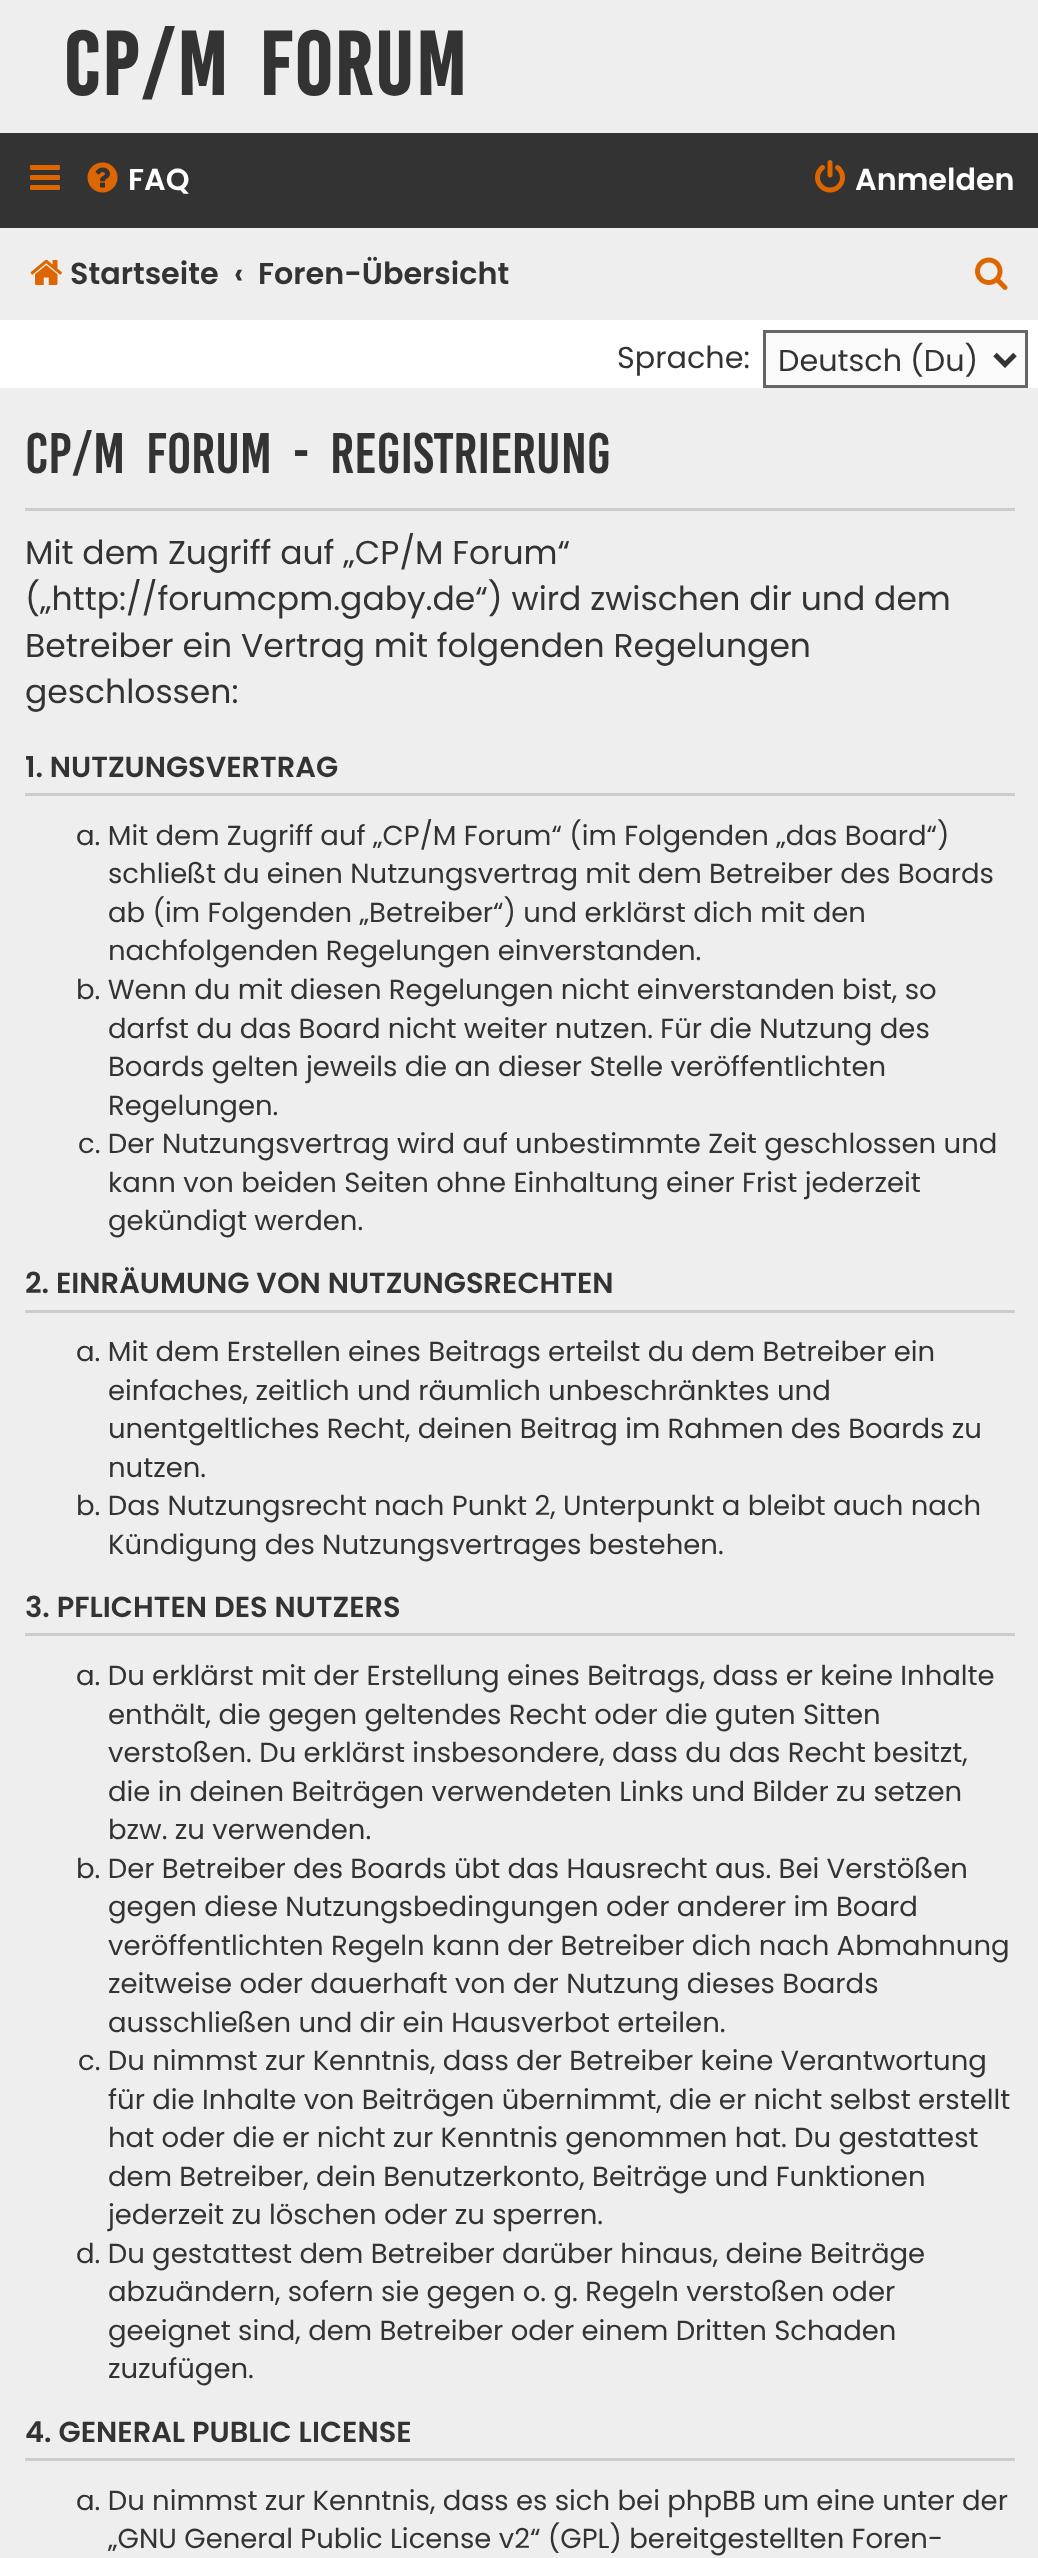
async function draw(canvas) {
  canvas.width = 1038;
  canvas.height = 2558;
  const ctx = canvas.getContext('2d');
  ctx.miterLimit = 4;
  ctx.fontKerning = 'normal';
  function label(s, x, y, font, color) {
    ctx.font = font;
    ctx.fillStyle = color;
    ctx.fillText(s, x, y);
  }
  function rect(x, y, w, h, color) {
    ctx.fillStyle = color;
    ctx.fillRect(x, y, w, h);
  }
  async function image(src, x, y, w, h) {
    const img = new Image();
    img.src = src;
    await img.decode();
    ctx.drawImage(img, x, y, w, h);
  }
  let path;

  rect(0, 0, 1038, 2558, '#fff');
  rect(0, 0, 1038, 133, '#eee');
  ctx.letterSpacing = '2.5px';
  ctx.wordSpacing = '10px';
  label('CP/M Forum', 63, 95, 'bold 68.75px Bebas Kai', '#333');
  rect(0, 133, 1038, 95, '#333');
  await image('assets/img1.png', 30, 165, 30, 25);
  await image('assets/img2.png', 87, 162, 31, 31);
  ctx.letterSpacing = '0px';
  ctx.wordSpacing = '0px';
  label('FAQ', 128, 190, '600 30.25px Poppins', '#fff');
  await image('assets/img3.png', 815, 160, 30, 33);
  label('Anmelden', 855, 190, '600 30.25px Poppins', '#fff');
  rect(0, 228, 1038, 92, '#eee');
  await image('assets/img4.png', 30, 259, 32, 26);
  label('Startseite', 70, 284, '600 30.25px Poppins', '#333');
  label('‹', 234, 284, '600 30.25px Poppins', '#333');
  label('Foren-Übersicht', 258, 284, '600 30.25px Poppins', '#333');
  await image('assets/img5.png', 975, 257, 33, 33);
  label('Sprache:', 617, 368, '30.25px Poppins', '#333');
  ctx.fillStyle = '#fafafa';
  ctx.beginPath();
  ctx.rect(764.5, 331.5, 262, 55);
  ctx.fill();
  ctx.strokeStyle = '#666';
  ctx.lineWidth = 3;
  ctx.stroke();
  path = new Path2D('M995 354.5L1005 364.5L1015 354.5');
  ctx.strokeStyle = '#333';
  ctx.lineWidth = 5;
  ctx.stroke(path);
  label('Deutsch (Du)', 778, 371, '30.25px Poppins', '#333');
  rect(0, 388, 1038, 2170, '#eee');
  rect(25, 508, 990, 3, '#ccc');
  ctx.wordSpacing = '10px';
  label('CP/M Forum - Registrierung', 25, 473, '44px Bebas Kai', '#333');
  ctx.wordSpacing = '0px';
  label('Mit dem Zugriff auf „CP/M Forum“', 25, 564, '33px Poppins', '#333');
  label('(„http://forumcpm.gaby.de“) wird zwischen dir und dem', 25, 610, '33px Poppins', '#333');
  label('Betreiber ein Vertrag mit folgenden Regelungen', 25, 657, '33px Poppins', '#333');
  label('geschlossen:', 25, 703, '33px Poppins', '#333');
  rect(25, 793, 990, 3, '#ccc');
  label('1. NUTZUNGSVERTRAG', 25, 777, '600 28.9px Poppins', '#333');
  label('a. Mit dem Zugriff auf „CP/M Forum“ (im Folgenden „das Board“)', 76, 845, '27.5px Poppins', '#333');
  label('schließt du einen Nutzungsvertrag mit dem Betreiber des Boards', 108, 883, '27.5px Poppins', '#333');
  label('ab (im Folgenden „Betreiber“) und erklärst dich mit den', 108, 922, '27.5px Poppins', '#333');
  label('nachfolgenden Regelungen einverstanden.', 108, 960, '27.5px Poppins', '#333');
  label('b. Wenn du mit diesen Regelungen nicht einverstanden bist, so', 76, 999, '27.5px Poppins', '#333');
  label('darfst du das Board nicht weiter nutzen. Für die Nutzung des', 108, 1038, '27.5px Poppins', '#333');
  label('Boards gelten jeweils die an dieser Stelle veröffentlichten', 108, 1076, '27.5px Poppins', '#333');
  label('Regelungen.', 108, 1115, '27.5px Poppins', '#333');
  label('c. Der Nutzungsvertrag wird auf unbestimmte Zeit geschlossen und', 78, 1153, '27.5px Poppins', '#333');
  label('kann von beiden Seiten ohne Einhaltung einer Frist jederzeit', 108, 1192, '27.5px Poppins', '#333');
  label('gekündigt werden.', 108, 1230, '27.5px Poppins', '#333');
  rect(25, 1310, 990, 3, '#ccc');
  label('2. EINRÄUMUNG VON NUTZUNGSRECHTEN', 25, 1293, '600 28.9px Poppins', '#333');
  label('a. Mit dem Erstellen eines Beitrags erteilst du dem Betreiber ein', 76, 1361, '27.5px Poppins', '#333');
  label('einfaches, zeitlich und räumlich unbeschränktes und', 108, 1400, '27.5px Poppins', '#333');
  label('unentgeltliches Recht, deinen Beitrag im Rahmen des Boards zu', 108, 1438, '27.5px Poppins', '#333');
  label('nutzen.', 108, 1477, '27.5px Poppins', '#333');
  label('b. Das Nutzungsrecht nach Punkt 2, Unterpunkt a bleibt auch nach', 76, 1515, '27.5px Poppins', '#333');
  label('Kündigung des Nutzungsvertrages bestehen.', 108, 1554, '27.5px Poppins', '#333');
  rect(25, 1633, 990, 3, '#ccc');
  label('3. PFLICHTEN DES NUTZERS', 25, 1617, '600 28.9px Poppins', '#333');
  label('a. Du erklärst mit der Erstellung eines Beitrags, dass er keine Inhalte', 76, 1685, '27.5px Poppins', '#333');
  label('enthält, die gegen geltendes Recht oder die guten Sitten', 108, 1724, '27.5px Poppins', '#333');
  label('verstoßen. Du erklärst insbesondere, dass du das Recht besitzt,', 108, 1762, '27.5px Poppins', '#333');
  label('die in deinen Beiträgen verwendeten Links und Bilder zu setzen', 108, 1801, '27.5px Poppins', '#333');
  label('bzw. zu verwenden.', 108, 1839, '27.5px Poppins', '#333');
  label('b. Der Betreiber des Boards übt das Hausrecht aus. Bei Verstößen', 76, 1878, '27.5px Poppins', '#333');
  label('gegen diese Nutzungsbedingungen oder anderer im Board', 108, 1916, '27.5px Poppins', '#333');
  label('veröffentlichten Regeln kann der Betreiber dich nach Abmahnung', 108, 1955, '27.5px Poppins', '#333');
  label('zeitweise oder dauerhaft von der Nutzung dieses Boards', 108, 1993, '27.5px Poppins', '#333');
  label('ausschließen und dir ein Hausverbot erteilen.', 108, 2032, '27.5px Poppins', '#333');
  label('c. Du nimmst zur Kenntnis, dass der Betreiber keine Verantwortung', 78, 2070, '27.5px Poppins', '#333');
  label('für die Inhalte von Beiträgen übernimmt, die er nicht selbst erstellt', 108, 2109, '27.5px Poppins', '#333');
  label('hat oder die er nicht zur Kenntnis genommen hat. Du gestattest', 108, 2147, '27.5px Poppins', '#333');
  label('dem Betreiber, dein Benutzerkonto, Beiträge und Funktionen', 108, 2186, '27.5px Poppins', '#333');
  label('jederzeit zu löschen oder zu sperren.', 108, 2224, '27.5px Poppins', '#333');
  label('d. Du gestattest dem Betreiber darüber hinaus, deine Beiträge', 76, 2263, '27.5px Poppins', '#333');
  label('abzuändern, sofern sie gegen o. g. Regeln verstoßen oder', 108, 2301, '27.5px Poppins', '#333');
  label('geeignet sind, dem Betreiber oder einem Dritten Schaden', 108, 2340, '27.5px Poppins', '#333');
  label('zuzufügen.', 108, 2378, '27.5px Poppins', '#333');
  rect(25, 2458, 990, 3, '#ccc');
  label('4. GENERAL PUBLIC LICENSE', 25, 2442, '600 28.9px Poppins', '#333');
  label('a. Du nimmst zur Kenntnis, dass es sich bei phpBB um eine unter der', 76, 2510, '27.5px Poppins', '#333');
  label('„GNU General Public License v2“ (GPL) bereitgestellten Foren-', 108, 2548, '27.5px Poppins', '#333');
}

draw(document.querySelector('canvas'));
